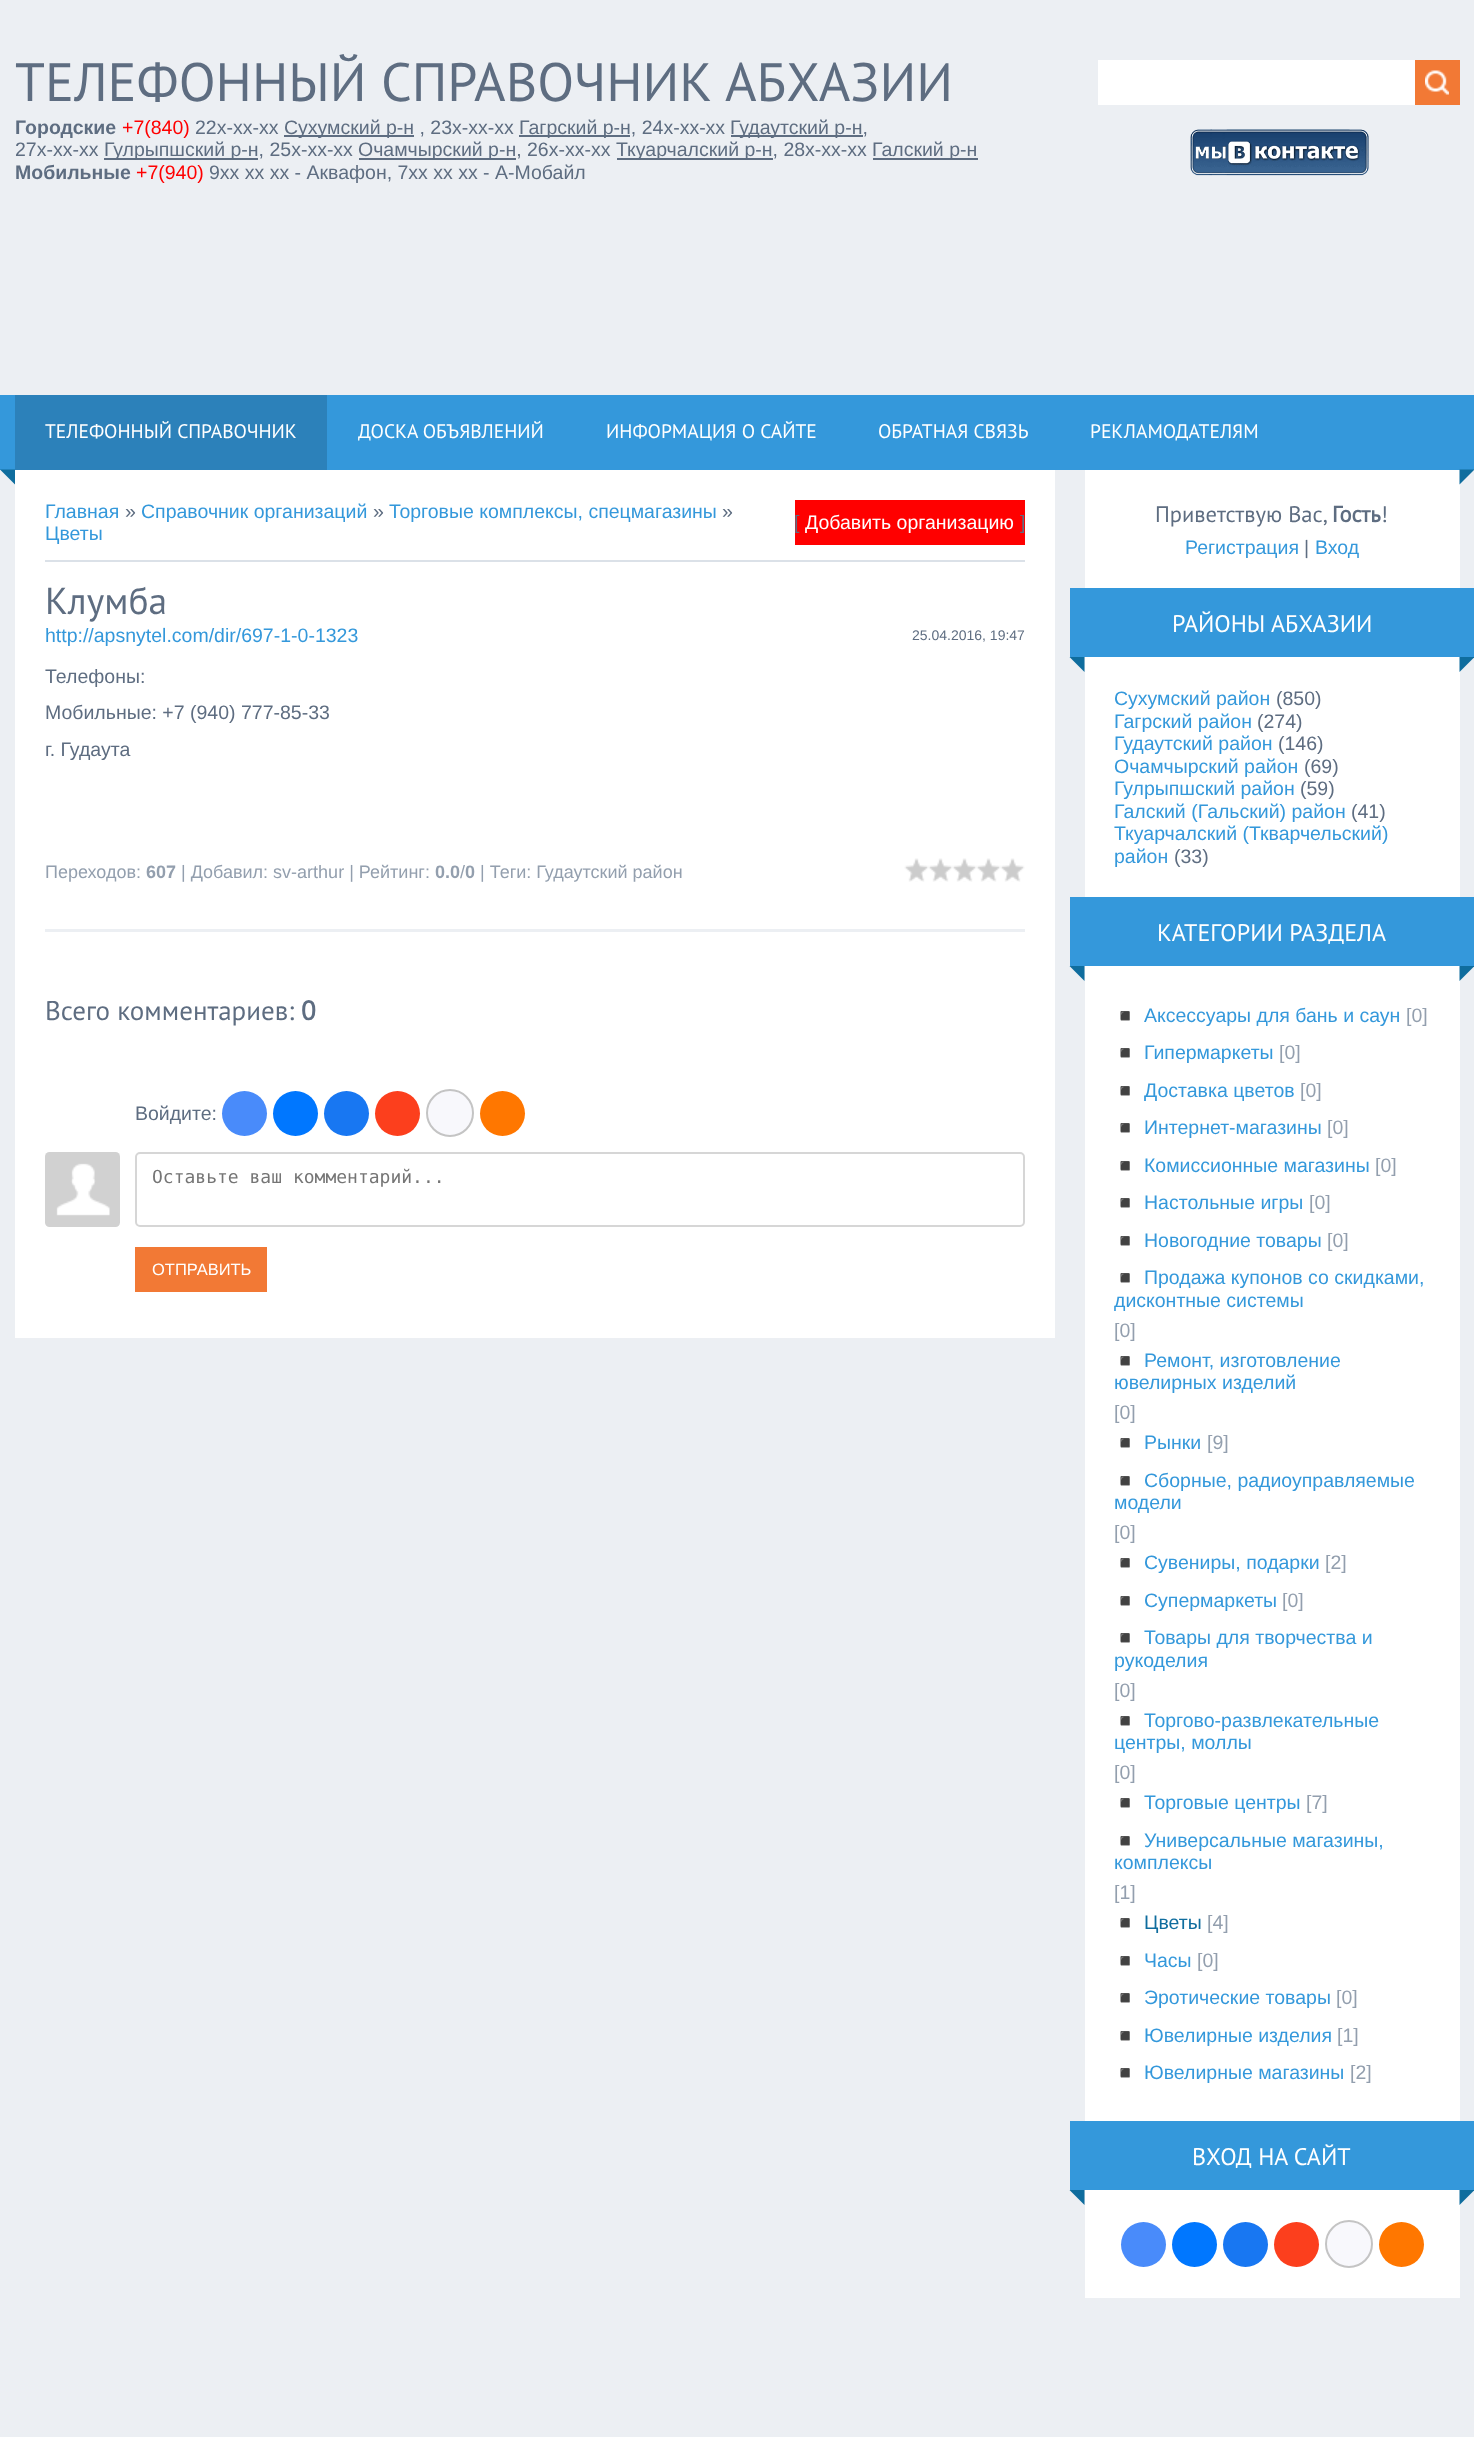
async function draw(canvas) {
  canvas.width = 1474;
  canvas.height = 2437;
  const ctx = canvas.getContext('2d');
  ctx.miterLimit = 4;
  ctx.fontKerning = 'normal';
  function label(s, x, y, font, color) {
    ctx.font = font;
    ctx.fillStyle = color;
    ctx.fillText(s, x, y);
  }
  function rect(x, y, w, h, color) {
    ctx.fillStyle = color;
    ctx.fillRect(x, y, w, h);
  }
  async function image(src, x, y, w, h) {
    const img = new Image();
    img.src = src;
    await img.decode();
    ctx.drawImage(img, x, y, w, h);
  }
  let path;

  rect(0, 0, 1474, 2437, '#eceff3');
  label('ТЕЛЕФОННЫЙ СПРАВОЧНИК АБХАЗИИ', 15, 101, '54px PT Sans', '#5e6d81');
  label('Городские', 15, 134, 'bold 19.5px Liberation Sans', '#5e6d81');
  label('+7(840)', 122, 134, '19.5px Liberation Sans', '#f00');
  label('22х-хх-хх', 195, 134, '19.5px Liberation Sans', '#5e6d81');
  rect(284, 135, 130, 2, '#5e6d81');
  label('Сухумский р-н , 23х-хх-хх', 284, 134, '19.5px Liberation Sans', '#5e6d81');
  rect(519, 135, 111, 2, '#5e6d81');
  label('Гагрский р-н, 24х-хх-хх', 519, 134, '19.5px Liberation Sans', '#5e6d81');
  rect(731, 135, 132, 2, '#5e6d81');
  label('Гудаутский р-н,', 730, 134, '19.5px Liberation Sans', '#5e6d81');
  label('27х-хх-хх', 15, 156, '19.5px Liberation Sans', '#5e6d81');
  rect(104, 158, 154, 2, '#5e6d81');
  label('Гулрыпшский р-н, 25х-хх-хх', 104, 156, '19.5px Liberation Sans', '#5e6d81');
  rect(359, 158, 157, 2, '#5e6d81');
  label('Очамчырский р-н, 26х-хх-хх', 358, 156, '19.5px Liberation Sans', '#5e6d81');
  rect(617, 158, 156, 2, '#5e6d81');
  label('Ткуарчалский р-н, 28х-хх-хх', 616, 156, '19.5px Liberation Sans', '#5e6d81');
  rect(873, 158, 105, 2, '#5e6d81');
  label('Галский р-н', 872, 156, '19.5px Liberation Sans', '#5e6d81');
  label('Мобильные', 15, 179, 'bold 19.5px Liberation Sans', '#5e6d81');
  label('+7(940)', 136, 179, '19.5px Liberation Sans', '#f00');
  label('9хх хх хх - Аквафон, 7хх хх хх - А-Мобайл', 209, 179, '19.5px Liberation Sans', '#5e6d81');
  rect(1098, 60, 317, 45, '#fff');
  rect(1415, 60, 45, 45, '#f27935');
  await image('assets/img1.png', 1425, 70, 24, 25);
  await image('assets/img2.png', 1190, 129, 179, 47);
  rect(0, 395, 1474, 75, '#3498db');
  rect(15, 395, 312, 75, '#2c81ba');
  label('ТЕЛЕФОННЫЙ СПРАВОЧНИК', 45, 438, '19.5px PT Sans', '#fff');
  label('ДОСКА ОБЪЯВЛЕНИЙ', 358, 438, '19.5px PT Sans', '#fff');
  label('ИНФОРМАЦИЯ О САЙТЕ', 606, 438, '19.5px PT Sans', '#fff');
  label('ОБРАТНАЯ СВЯЗЬ', 878, 438, '19.5px PT Sans', '#fff');
  label('РЕКЛАМОДАТЕЛЯМ', 1090, 438, '19.5px PT Sans', '#fff');
  ctx.fillStyle = '#0f6d9e';
  path = new Path2D('M0 469.5H15V484.5Z');
  ctx.fill(path);
  rect(1085, 470, 375, 1828, '#fff');
  ctx.fillStyle = '#0f6d9e';
  path = new Path2D('M1459.5 469.5H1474.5L1459.5 484.5Z');
  ctx.fill(path);
  rect(15, 470, 1040, 868, '#fff');
  label('Главная', 45, 518, '19.5px Liberation Sans', '#3498db');
  label('»', 125, 518, '19.5px Liberation Sans', '#5e6d81');
  label('Справочник организаций', 141, 518, '19.5px Liberation Sans', '#3498db');
  label('»', 373, 518, '19.5px Liberation Sans', '#5e6d81');
  label('Торговые комплексы, спецмагазины', 389, 518, '19.5px Liberation Sans', '#3498db');
  label('»', 722, 518, '19.5px Liberation Sans', '#5e6d81');
  label('Цветы', 45, 540, '19.5px Liberation Sans', '#3498db');
  rect(795, 500, 230, 45, '#f00');
  label('[', 794, 529, '19.5px Liberation Sans', '#5e6d81');
  label('Добавить организацию', 805, 529, '19.5px Liberation Sans', '#fff');
  label(']', 1020, 529, '19.5px Liberation Sans', '#5e6d81');
  rect(45, 560, 980, 2, '#dbe1e8');
  label('Клумба', 45, 614, '37.5px PT Sans', '#5e6d81');
  rect(45, 929, 980, 3, '#eceff3');
  label('http://apsnytel.com/dir/697-1-0-1323', 45, 642, '19.5px Liberation Sans', '#3498db');
  label('25.04.2016, 19:47', 912, 640, '14px Liberation Sans', '#5e6d81');
  label('Телефоны:', 45, 683, '19.5px Liberation Sans', '#5e6d81');
  label('Мобильные: +7 (940) 777-85-33', 45, 719, '19.5px Liberation Sans', '#5e6d81');
  label('г. Гудаута', 45, 756, '19.5px Liberation Sans', '#5e6d81');
  label('Переходов:', 45, 878, '18px Liberation Sans', '#939fae');
  label('607', 146, 878, 'bold 18px Liberation Sans', '#939fae');
  label('| Добавил: sv-arthur | Рейтинг:', 181, 878, '18px Liberation Sans', '#939fae');
  label('0.0', 435, 878, 'bold 18px Liberation Sans', '#939fae');
  label('/', 460, 878, '18px Liberation Sans', '#939fae');
  label('0', 465, 878, 'bold 18px Liberation Sans', '#939fae');
  label('| Теги: Гудаутский район', 480, 878, '18px Liberation Sans', '#939fae');
  await image('assets/img3.png', 904, 858, 121, 24);
  label('Всего комментариев:', 45, 1020, '27px PT Sans', '#5e6d81');
  label('0', 301, 1020, 'bold 27px PT Sans', '#5e6d81');
  label('Войдите:', 135, 1120, '19.5px Liberation Sans', '#5e6d81');
  ctx.fillStyle = '#498bfa';
  ctx.beginPath();
  ctx.arc(244.5, 1113.5, 22.5, 0, 2 * Math.PI);
  ctx.fill();
  ctx.fillStyle = '#07f';
  ctx.beginPath();
  ctx.arc(295.5, 1113.5, 22.5, 0, 2 * Math.PI);
  ctx.fill();
  ctx.fillStyle = '#1877f2';
  ctx.beginPath();
  ctx.arc(346.5, 1113.5, 22.5, 0, 2 * Math.PI);
  ctx.fill();
  ctx.fillStyle = '#fc3f1d';
  ctx.beginPath();
  ctx.arc(397.5, 1113.5, 22.5, 0, 2 * Math.PI);
  ctx.fill();
  ctx.fillStyle = '#f8f8fc';
  ctx.beginPath();
  ctx.arc(450, 1113, 23, 0, 2 * Math.PI);
  ctx.fill();
  ctx.strokeStyle = '#c4c4c4';
  ctx.lineWidth = 2;
  ctx.stroke();
  ctx.fillStyle = '#f70';
  ctx.beginPath();
  ctx.arc(502.5, 1113.5, 22.5, 0, 2 * Math.PI);
  ctx.fill();
  await image('assets/img4.png', 45, 1152, 75, 75);
  ctx.beginPath();
  ctx.roundRect(136, 1153, 888, 73, 4);
  ctx.strokeStyle = '#d6d6d6';
  ctx.stroke();
  label('Оставьте ваш комментарий...', 152, 1183, '18px DejaVu Sans Mono', '#757575');
  rect(135, 1247, 132, 45, '#f27935');
  label('ОТПРАВИТЬ', 152, 1275, '16.5px Liberation Sans', '#fff');
  label('Приветствую Вас,', 1155, 522, '22.5px PT Sans', '#5e6d81');
  label('Гость', 1332, 522, 'bold 22.5px PT Sans', '#5e6d81');
  label('!', 1381, 522, '22.5px PT Sans', '#5e6d81');
  label('Регистрация', 1185, 554, '19.5px Liberation Sans', '#3498db');
  label('|', 1304, 554, '19.5px Liberation Sans', '#5e6d81');
  label('Вход', 1315, 554, '19.5px Liberation Sans', '#3498db');
  rect(1070, 588, 404, 69, '#3498db');
  label('РАЙОНЫ АБХАЗИИ', 1172, 632, '24px PT Sans', '#fff');
  ctx.fillStyle = '#0f6d9e';
  path = new Path2D('M1069.5 657H1084.5V672Z');
  ctx.fill(path);
  path = new Path2D('M1459.5 657H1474.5L1459.5 672Z');
  ctx.fill(path);
  label('Сухумский район', 1114, 705, '19.5px Liberation Sans', '#3498db');
  label('(850)', 1276, 705, '19.5px Liberation Sans', '#5e6d81');
  label('Гагрский район', 1114, 728, '19.5px Liberation Sans', '#3498db');
  label('(274)', 1257, 728, '19.5px Liberation Sans', '#5e6d81');
  label('Гудаутский район', 1114, 750, '19.5px Liberation Sans', '#3498db');
  label('(146)', 1278, 750, '19.5px Liberation Sans', '#5e6d81');
  label('Очамчырский район', 1114, 773, '19.5px Liberation Sans', '#3498db');
  label('(69)', 1304, 773, '19.5px Liberation Sans', '#5e6d81');
  label('Гулрыпшский район', 1114, 795, '19.5px Liberation Sans', '#3498db');
  label('(59)', 1300, 795, '19.5px Liberation Sans', '#5e6d81');
  label('Галский (Гальский) район', 1114, 818, '19.5px Liberation Sans', '#3498db');
  label('(41)', 1351, 818, '19.5px Liberation Sans', '#5e6d81');
  label('Ткуарчалский (Ткварчельский)', 1114, 840, '19.5px Liberation Sans', '#3498db');
  label('район', 1114, 863, '19.5px Liberation Sans', '#3498db');
  label('(33)', 1174, 863, '19.5px Liberation Sans', '#5e6d81');
  rect(1070, 897, 404, 69, '#3498db');
  label('КАТЕГОРИИ РАЗДЕЛА', 1157, 941, '24px PT Sans', '#fff');
  ctx.fillStyle = '#0f6d9e';
  path = new Path2D('M1069.5 966H1084.5V981Z');
  ctx.fill(path);
  path = new Path2D('M1459.5 966H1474.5L1459.5 981Z');
  ctx.fill(path);
  label('◾', 1114, 1022, '18px Noto Color Emoji', '#dadddf');
  label('Аксессуары для бань и саун', 1144, 1022, '19.5px Liberation Sans', '#3498db');
  label('[0]', 1406, 1022, '19.5px Liberation Sans', '#939fae');
  label('◾', 1114, 1059, '18px Noto Color Emoji', '#dadddf');
  label('Гипермаркеты', 1144, 1059, '19.5px Liberation Sans', '#3498db');
  label('[0]', 1279, 1059, '19.5px Liberation Sans', '#939fae');
  label('◾', 1114, 1097, '18px Noto Color Emoji', '#dadddf');
  label('Доставка цветов', 1144, 1097, '19.5px Liberation Sans', '#3498db');
  label('[0]', 1300, 1097, '19.5px Liberation Sans', '#939fae');
  label('◾', 1114, 1134, '18px Noto Color Emoji', '#dadddf');
  label('Интернет-магазины', 1144, 1134, '19.5px Liberation Sans', '#3498db');
  label('[0]', 1327, 1134, '19.5px Liberation Sans', '#939fae');
  label('◾', 1114, 1172, '18px Noto Color Emoji', '#dadddf');
  label('Комиссионные магазины', 1144, 1172, '19.5px Liberation Sans', '#3498db');
  label('[0]', 1375, 1172, '19.5px Liberation Sans', '#939fae');
  label('◾', 1114, 1209, '18px Noto Color Emoji', '#dadddf');
  label('Настольные игры', 1144, 1209, '19.5px Liberation Sans', '#3498db');
  label('[0]', 1309, 1209, '19.5px Liberation Sans', '#939fae');
  label('◾', 1114, 1247, '18px Noto Color Emoji', '#dadddf');
  label('Новогодние товары', 1144, 1247, '19.5px Liberation Sans', '#3498db');
  label('[0]', 1327, 1247, '19.5px Liberation Sans', '#939fae');
  label('◾', 1114, 1284, '18px Noto Color Emoji', '#dadddf');
  label('Продажа купонов со скидками,', 1144, 1284, '19.5px Liberation Sans', '#3498db');
  label('дисконтные системы', 1114, 1307, '19.5px Liberation Sans', '#3498db');
  label('[0]', 1114, 1337, '19.5px Liberation Sans', '#939fae');
  label('◾', 1114, 1367, '18px Noto Color Emoji', '#dadddf');
  label('Ремонт, изготовление', 1144, 1367, '19.5px Liberation Sans', '#3498db');
  label('ювелирных изделий', 1114, 1389, '19.5px Liberation Sans', '#3498db');
  label('[0]', 1114, 1419, '19.5px Liberation Sans', '#939fae');
  label('◾', 1114, 1449, '18px Noto Color Emoji', '#dadddf');
  label('Рынки', 1144, 1449, '19.5px Liberation Sans', '#3498db');
  label('[9]', 1207, 1449, '19.5px Liberation Sans', '#939fae');
  label('◾', 1114, 1487, '18px Noto Color Emoji', '#dadddf');
  label('Сборные, радиоуправляемые', 1144, 1487, '19.5px Liberation Sans', '#3498db');
  label('модели', 1114, 1509, '19.5px Liberation Sans', '#3498db');
  label('[0]', 1114, 1539, '19.5px Liberation Sans', '#939fae');
  label('◾', 1114, 1569, '18px Noto Color Emoji', '#dadddf');
  label('Сувениры, подарки', 1144, 1569, '19.5px Liberation Sans', '#3498db');
  label('[2]', 1325, 1569, '19.5px Liberation Sans', '#939fae');
  label('◾', 1114, 1607, '18px Noto Color Emoji', '#dadddf');
  label('Супермаркеты', 1144, 1607, '19.5px Liberation Sans', '#3498db');
  label('[0]', 1282, 1607, '19.5px Liberation Sans', '#939fae');
  label('◾', 1114, 1644, '18px Noto Color Emoji', '#dadddf');
  label('Товары для творчества и', 1144, 1644, '19.5px Liberation Sans', '#3498db');
  label('рукоделия', 1114, 1667, '19.5px Liberation Sans', '#3498db');
  label('[0]', 1114, 1697, '19.5px Liberation Sans', '#939fae');
  label('◾', 1114, 1727, '18px Noto Color Emoji', '#dadddf');
  label('Торгово-развлекательные', 1144, 1727, '19.5px Liberation Sans', '#3498db');
  label('центры, моллы', 1114, 1749, '19.5px Liberation Sans', '#3498db');
  label('[0]', 1114, 1779, '19.5px Liberation Sans', '#939fae');
  label('◾', 1114, 1809, '18px Noto Color Emoji', '#dadddf');
  label('Торговые центры', 1144, 1809, '19.5px Liberation Sans', '#3498db');
  label('[7]', 1306, 1809, '19.5px Liberation Sans', '#939fae');
  label('◾', 1114, 1847, '18px Noto Color Emoji', '#dadddf');
  label('Универсальные магазины,', 1144, 1847, '19.5px Liberation Sans', '#3498db');
  label('комплексы', 1114, 1869, '19.5px Liberation Sans', '#3498db');
  label('[1]', 1114, 1899, '19.5px Liberation Sans', '#939fae');
  label('◾', 1114, 1929, '18px Noto Color Emoji', '#939fae');
  label('Цветы', 1144, 1929, '19.5px Liberation Sans', '#0f6d9e');
  label('[4]', 1207, 1929, '19.5px Liberation Sans', '#939fae');
  label('◾', 1114, 1967, '18px Noto Color Emoji', '#dadddf');
  label('Часы', 1144, 1967, '19.5px Liberation Sans', '#3498db');
  label('[0]', 1197, 1967, '19.5px Liberation Sans', '#939fae');
  label('◾', 1114, 2004, '18px Noto Color Emoji', '#dadddf');
  label('Эротические товары', 1144, 2004, '19.5px Liberation Sans', '#3498db');
  label('[0]', 1336, 2004, '19.5px Liberation Sans', '#939fae');
  label('◾', 1114, 2042, '18px Noto Color Emoji', '#dadddf');
  label('Ювелирные изделия', 1144, 2042, '19.5px Liberation Sans', '#3498db');
  label('[1]', 1337, 2042, '19.5px Liberation Sans', '#939fae');
  label('◾', 1114, 2079, '18px Noto Color Emoji', '#dadddf');
  label('Ювелирные магазины', 1144, 2079, '19.5px Liberation Sans', '#3498db');
  label('[2]', 1350, 2079, '19.5px Liberation Sans', '#939fae');
  rect(1070, 2121, 404, 69, '#3498db');
  label('ВХОД НА САЙТ', 1192, 2165, '24px PT Sans', '#fff');
  ctx.fillStyle = '#0f6d9e';
  path = new Path2D('M1069.5 2190H1084.5V2205Z');
  ctx.fill(path);
  path = new Path2D('M1459.5 2190H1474.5L1459.5 2205Z');
  ctx.fill(path);
  ctx.fillStyle = '#498bfa';
  ctx.beginPath();
  ctx.arc(1143.5, 2244.5, 22.5, 0, 2 * Math.PI);
  ctx.fill();
  ctx.fillStyle = '#07f';
  ctx.beginPath();
  ctx.arc(1194.5, 2244.5, 22.5, 0, 2 * Math.PI);
  ctx.fill();
  ctx.fillStyle = '#1877f2';
  ctx.beginPath();
  ctx.arc(1245.5, 2244.5, 22.5, 0, 2 * Math.PI);
  ctx.fill();
  ctx.fillStyle = '#fc3f1d';
  ctx.beginPath();
  ctx.arc(1296.5, 2244.5, 22.5, 0, 2 * Math.PI);
  ctx.fill();
  ctx.fillStyle = '#f8f8fc';
  ctx.beginPath();
  ctx.arc(1349, 2244, 23, 0, 2 * Math.PI);
  ctx.fill();
  ctx.strokeStyle = '#c4c4c4';
  ctx.stroke();
  ctx.fillStyle = '#f70';
  ctx.beginPath();
  ctx.arc(1401.5, 2244.5, 22.5, 0, 2 * Math.PI);
  ctx.fill();
}

draw(document.querySelector('canvas'));
